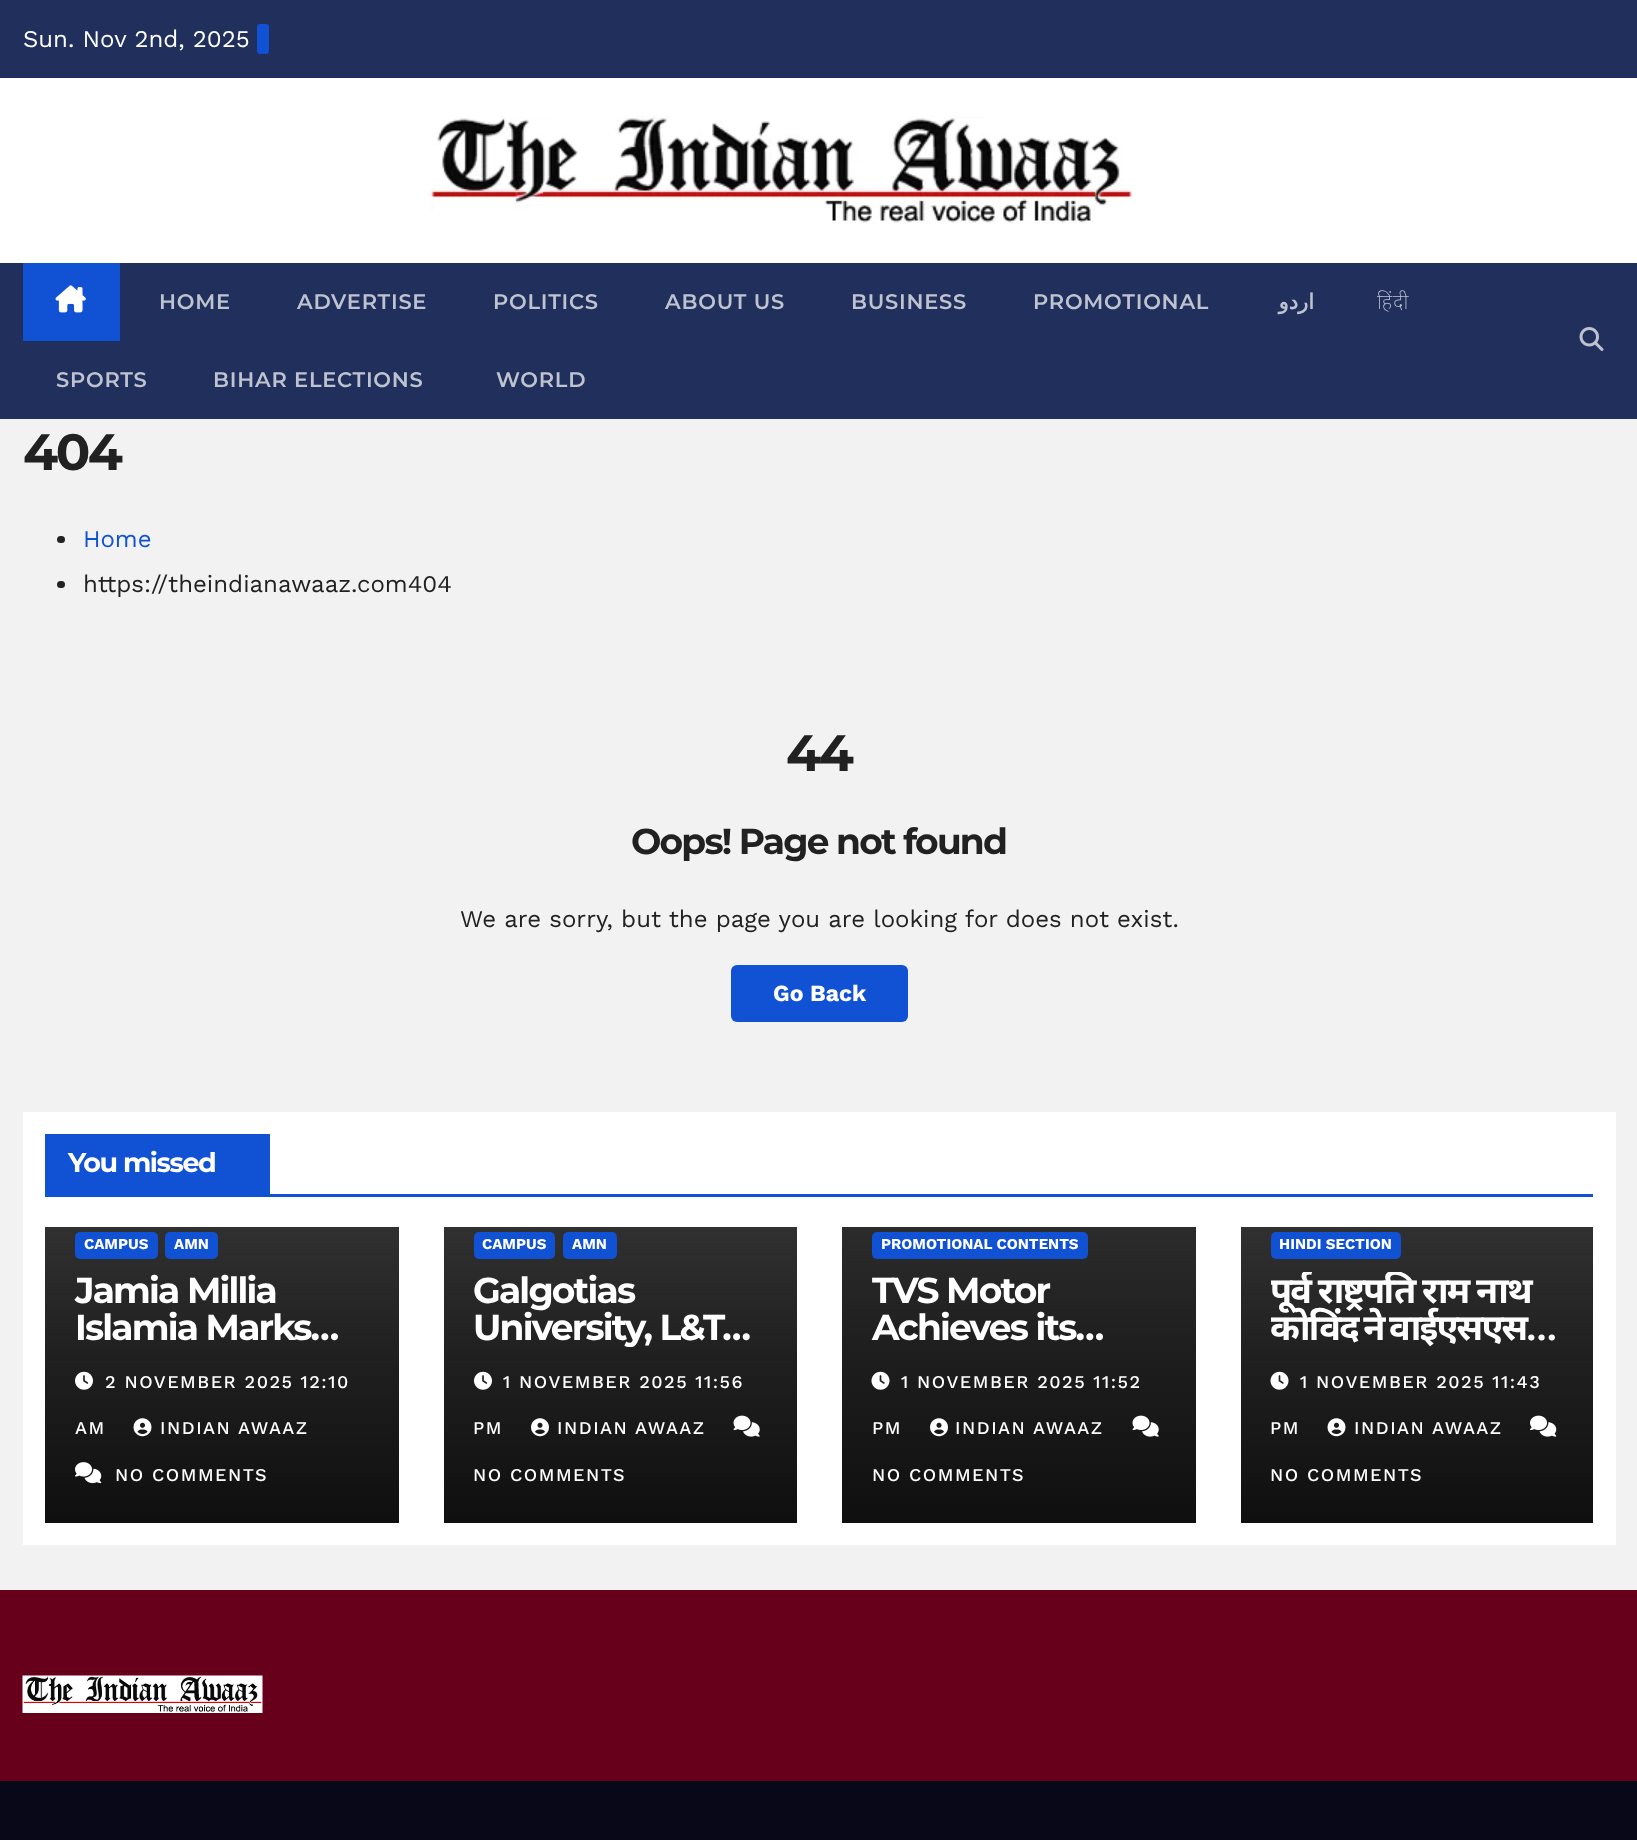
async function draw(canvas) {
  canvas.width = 1637;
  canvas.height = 1840;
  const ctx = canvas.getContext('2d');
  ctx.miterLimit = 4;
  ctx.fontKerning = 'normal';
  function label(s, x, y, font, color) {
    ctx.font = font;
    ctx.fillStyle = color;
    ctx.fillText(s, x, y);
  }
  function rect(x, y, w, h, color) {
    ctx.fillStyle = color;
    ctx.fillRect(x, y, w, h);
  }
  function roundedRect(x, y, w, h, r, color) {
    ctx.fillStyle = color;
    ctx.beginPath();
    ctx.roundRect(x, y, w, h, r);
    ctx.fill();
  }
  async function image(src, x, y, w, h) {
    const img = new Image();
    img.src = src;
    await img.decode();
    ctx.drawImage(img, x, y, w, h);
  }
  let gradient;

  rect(0, 0, 1637, 1840, '#f2f2f2');
  rect(0, 0, 1637, 78, '#202f5b');
  label('Sun. Nov 2nd, 2025', 23, 47, '24px Work Sans', '#fff');
  roundedRect(257, 24, 12, 30, 3, '#1151d3');
  rect(0, 78, 1637, 185, '#fff');
  await image('assets/img1.png', 429, 115, 705, 109);
  rect(0, 263, 1637, 156, '#202f5b');
  rect(23, 263, 97, 78, '#1151d3');
  await image('assets/img2.png', 55, 285, 31, 28);
  ctx.letterSpacing = '0.75px';
  label('HOME', 159, 309, '600 21px Montserrat', '#bec3cf');
  label('ADVERTISE', 297, 309, '600 21px Montserrat', '#bec3cf');
  label('POLITICS', 493, 309, '600 21px Montserrat', '#bec3cf');
  label('ABOUT US', 665, 309, '600 21px Montserrat', '#bec3cf');
  label('BUSINESS', 851, 309, '600 21px Montserrat', '#bec3cf');
  label('PROMOTIONAL', 1033, 309, '600 21px Montserrat', '#bec3cf');
  ctx.direction = 'rtl';
  label('اردو', 1314, 309, 'bold 21px DejaVu Sans', '#bec3cf');
  ctx.direction = 'ltr';
  label('हिंदी', 1377, 309, '200 21px Noto Sans', '#bec3cf');
  label('SPORTS', 56, 387, '600 21px Montserrat', '#bec3cf');
  label('BIHAR ELECTIONS', 213, 387, '600 21px Montserrat', '#bec3cf');
  label('WORLD', 496, 387, '600 21px Montserrat', '#bec3cf');
  await image('assets/img3.png', 1579, 327, 25, 24);
  ctx.letterSpacing = '-2.5px';
  label('404', 23, 470, 'bold 51px Montserrat', '#212121');
  roundedRect(57, 536, 8, 7, 3.5, '#222');
  ctx.letterSpacing = '0px';
  label('Home', 83, 547, '24px Work Sans', '#1151d3');
  roundedRect(57, 581, 8, 7, 3.5, '#222');
  label('https://theindianawaaz.com404', 83, 592, '24px Work Sans', '#212121');
  ctx.letterSpacing = '-2.5px';
  label('44', 786, 771, 'bold 51px Montserrat', '#212121');
  ctx.letterSpacing = '-1.8px';
  label('Oops! Page not found', 631, 854, 'bold 36px Montserrat', '#212121');
  ctx.letterSpacing = '0px';
  label('We are sorry, but the page you are looking for does not exist.', 460, 927, '24px Work Sans', '#212121');
  roundedRect(731, 965, 177, 57, 6, '#1151d3');
  label('Go Back', 773, 1001, 'bold 23px Work Sans', '#fff');
  rect(23, 1112, 1593, 433, '#fff');
  rect(45, 1194, 1548, 3, '#1151d3');
  rect(45, 1134, 225, 60, '#1151d3');
  ctx.letterSpacing = '-1.4px';
  label('You missed', 68, 1172, 'bold 27px Montserrat', '#fff');
  gradient = ctx.createLinearGradient(222, 1205, 222, 1523);
  gradient.addColorStop(0, '#333');
  gradient.addColorStop(0.5, '#1f1f1f');
  gradient.addColorStop(1, '#0f0f0f');
  ctx.fillStyle = gradient;
  ctx.fillRect(45, 1227, 354, 296);
  roundedRect(75, 1232, 83, 27, 5, '#1151d3');
  ctx.letterSpacing = '0px';
  label('CAMPUS', 84, 1249, 'bold 15px Work Sans', '#fff');
  roundedRect(165, 1232, 53, 27, 5, '#1151d3');
  label('AMN', 174, 1249, 'bold 15px Work Sans', '#fff');
  ctx.letterSpacing = '-1.8px';
  label('Jamia Millia', 75, 1303, 'bold 36px Montserrat', '#fff');
  label('Islamia Marks…', 75, 1340, 'bold 36px Montserrat', '#fff');
  await image('assets/img4.png', 75, 1371, 18, 19);
  ctx.letterSpacing = '1.5px';
  label('2 NOVEMBER 2025 12:10', 105, 1388, '500 18px Work Sans', '#fff');
  label('AM', 75, 1434, '500 18px Work Sans', '#fff');
  await image('assets/img5.png', 133, 1418, 19, 19);
  label('INDIAN AWAAZ', 160, 1434, '500 18px Work Sans', '#fff');
  await image('assets/img6.png', 75, 1462, 27, 22);
  label('NO COMMENTS', 115, 1481, '500 18px Work Sans', '#fff');
  gradient = ctx.createLinearGradient(620, 1205, 620, 1523);
  gradient.addColorStop(0, '#333');
  gradient.addColorStop(0.5, '#1f1f1f');
  gradient.addColorStop(1, '#0f0f0f');
  ctx.fillStyle = gradient;
  ctx.fillRect(444, 1227, 353, 296);
  roundedRect(474, 1232, 81, 27, 5, '#1151d3');
  ctx.letterSpacing = '0px';
  label('CAMPUS', 482, 1249, 'bold 15px Work Sans', '#fff');
  roundedRect(563, 1232, 54, 27, 5, '#1151d3');
  label('AMN', 572, 1249, 'bold 15px Work Sans', '#fff');
  ctx.letterSpacing = '-1.8px';
  label('Galgotias', 473, 1303, 'bold 36px Montserrat', '#fff');
  ctx.save();
  ctx.beginPath();
  ctx.rect(474, 1272, 293, 75);
  ctx.clip();
  label('University, L&T…', 473, 1340, 'bold 36px Montserrat', '#fff');
  ctx.restore();
  await image('assets/img4.png', 474, 1371, 18, 19);
  ctx.letterSpacing = '1.5px';
  label('1 NOVEMBER 2025 11:56', 503, 1388, '500 18px Work Sans', '#fff');
  label('PM', 473, 1434, '500 18px Work Sans', '#fff');
  await image('assets/img7.png', 531, 1418, 18, 19);
  label('INDIAN AWAAZ', 557, 1434, '500 18px Work Sans', '#fff');
  await image('assets/img8.png', 733, 1415, 27, 22);
  label('NO COMMENTS', 473, 1481, '500 18px Work Sans', '#fff');
  gradient = ctx.createLinearGradient(1019, 1160, 1019, 1523);
  gradient.addColorStop(0, '#333');
  gradient.addColorStop(0.5, '#1f1f1f');
  gradient.addColorStop(1, '#0f0f0f');
  ctx.fillStyle = gradient;
  ctx.fillRect(842, 1227, 354, 296);
  roundedRect(872, 1232, 216, 27, 5, '#1151d3');
  ctx.letterSpacing = '0px';
  label('PROMOTIONAL CONTENTS', 881, 1249, 'bold 15px Work Sans', '#fff');
  ctx.save();
  ctx.beginPath();
  ctx.rect(872, 1272, 294, 75);
  ctx.clip();
  ctx.letterSpacing = '-1.8px';
  label('TVS Motor', 872, 1303, 'bold 36px Montserrat', '#fff');
  ctx.restore();
  ctx.letterSpacing = '-1.8px';
  label('Achieves its…', 872, 1340, 'bold 36px Montserrat', '#fff');
  await image('assets/img9.png', 871, 1371, 19, 19);
  ctx.letterSpacing = '1.5px';
  label('1 NOVEMBER 2025 11:52', 901, 1388, '500 18px Work Sans', '#fff');
  label('PM', 872, 1434, '500 18px Work Sans', '#fff');
  await image('assets/img10.png', 930, 1418, 18, 19);
  label('INDIAN AWAAZ', 955, 1434, '500 18px Work Sans', '#fff');
  await image('assets/img11.png', 1132, 1415, 27, 22);
  label('NO COMMENTS', 872, 1481, '500 18px Work Sans', '#fff');
  gradient = ctx.createLinearGradient(1417, 1205, 1417, 1523);
  gradient.addColorStop(0, '#333');
  gradient.addColorStop(0.5, '#1f1f1f');
  gradient.addColorStop(1, '#0f0f0f');
  ctx.fillStyle = gradient;
  ctx.fillRect(1241, 1227, 352, 296);
  roundedRect(1271, 1232, 130, 27, 5, '#1151d3');
  ctx.letterSpacing = '0px';
  label('HINDI SECTION', 1279, 1249, 'bold 15px Work Sans', '#fff');
  ctx.save();
  ctx.beginPath();
  ctx.rect(1271, 1272, 292, 75);
  ctx.clip();
  ctx.letterSpacing = '-1.8px';
  label('पूर्व राष्ट्रपति राम नाथ', 1270, 1303, 'bold 36px Noto Sans', '#fff');
  ctx.wordSpacing = '-2px';
  label('कोविंद ने वाईएसएस…', 1270, 1340, 'bold 36px Noto Sans', '#fff');
  ctx.restore();
  await image('assets/img12.png', 1270, 1371, 19, 19);
  ctx.letterSpacing = '1.5px';
  label('1 NOVEMBER 2025 11:43', 1300, 1388, '500 18px Work Sans', '#fff');
  label('PM', 1270, 1434, '500 18px Work Sans', '#fff');
  await image('assets/img5.png', 1327, 1418, 19, 19);
  label('INDIAN AWAAZ', 1354, 1434, '500 18px Work Sans', '#fff');
  await image('assets/img13.png', 1530, 1415, 27, 22);
  label('NO COMMENTS', 1270, 1481, '500 18px Work Sans', '#fff');
  rect(0, 1590, 1637, 191, '#66001b');
  await image('assets/img14.png', 22, 1675, 241, 38);
  rect(0, 1781, 1637, 59, '#090818');
}

draw(document.querySelector('canvas'));
